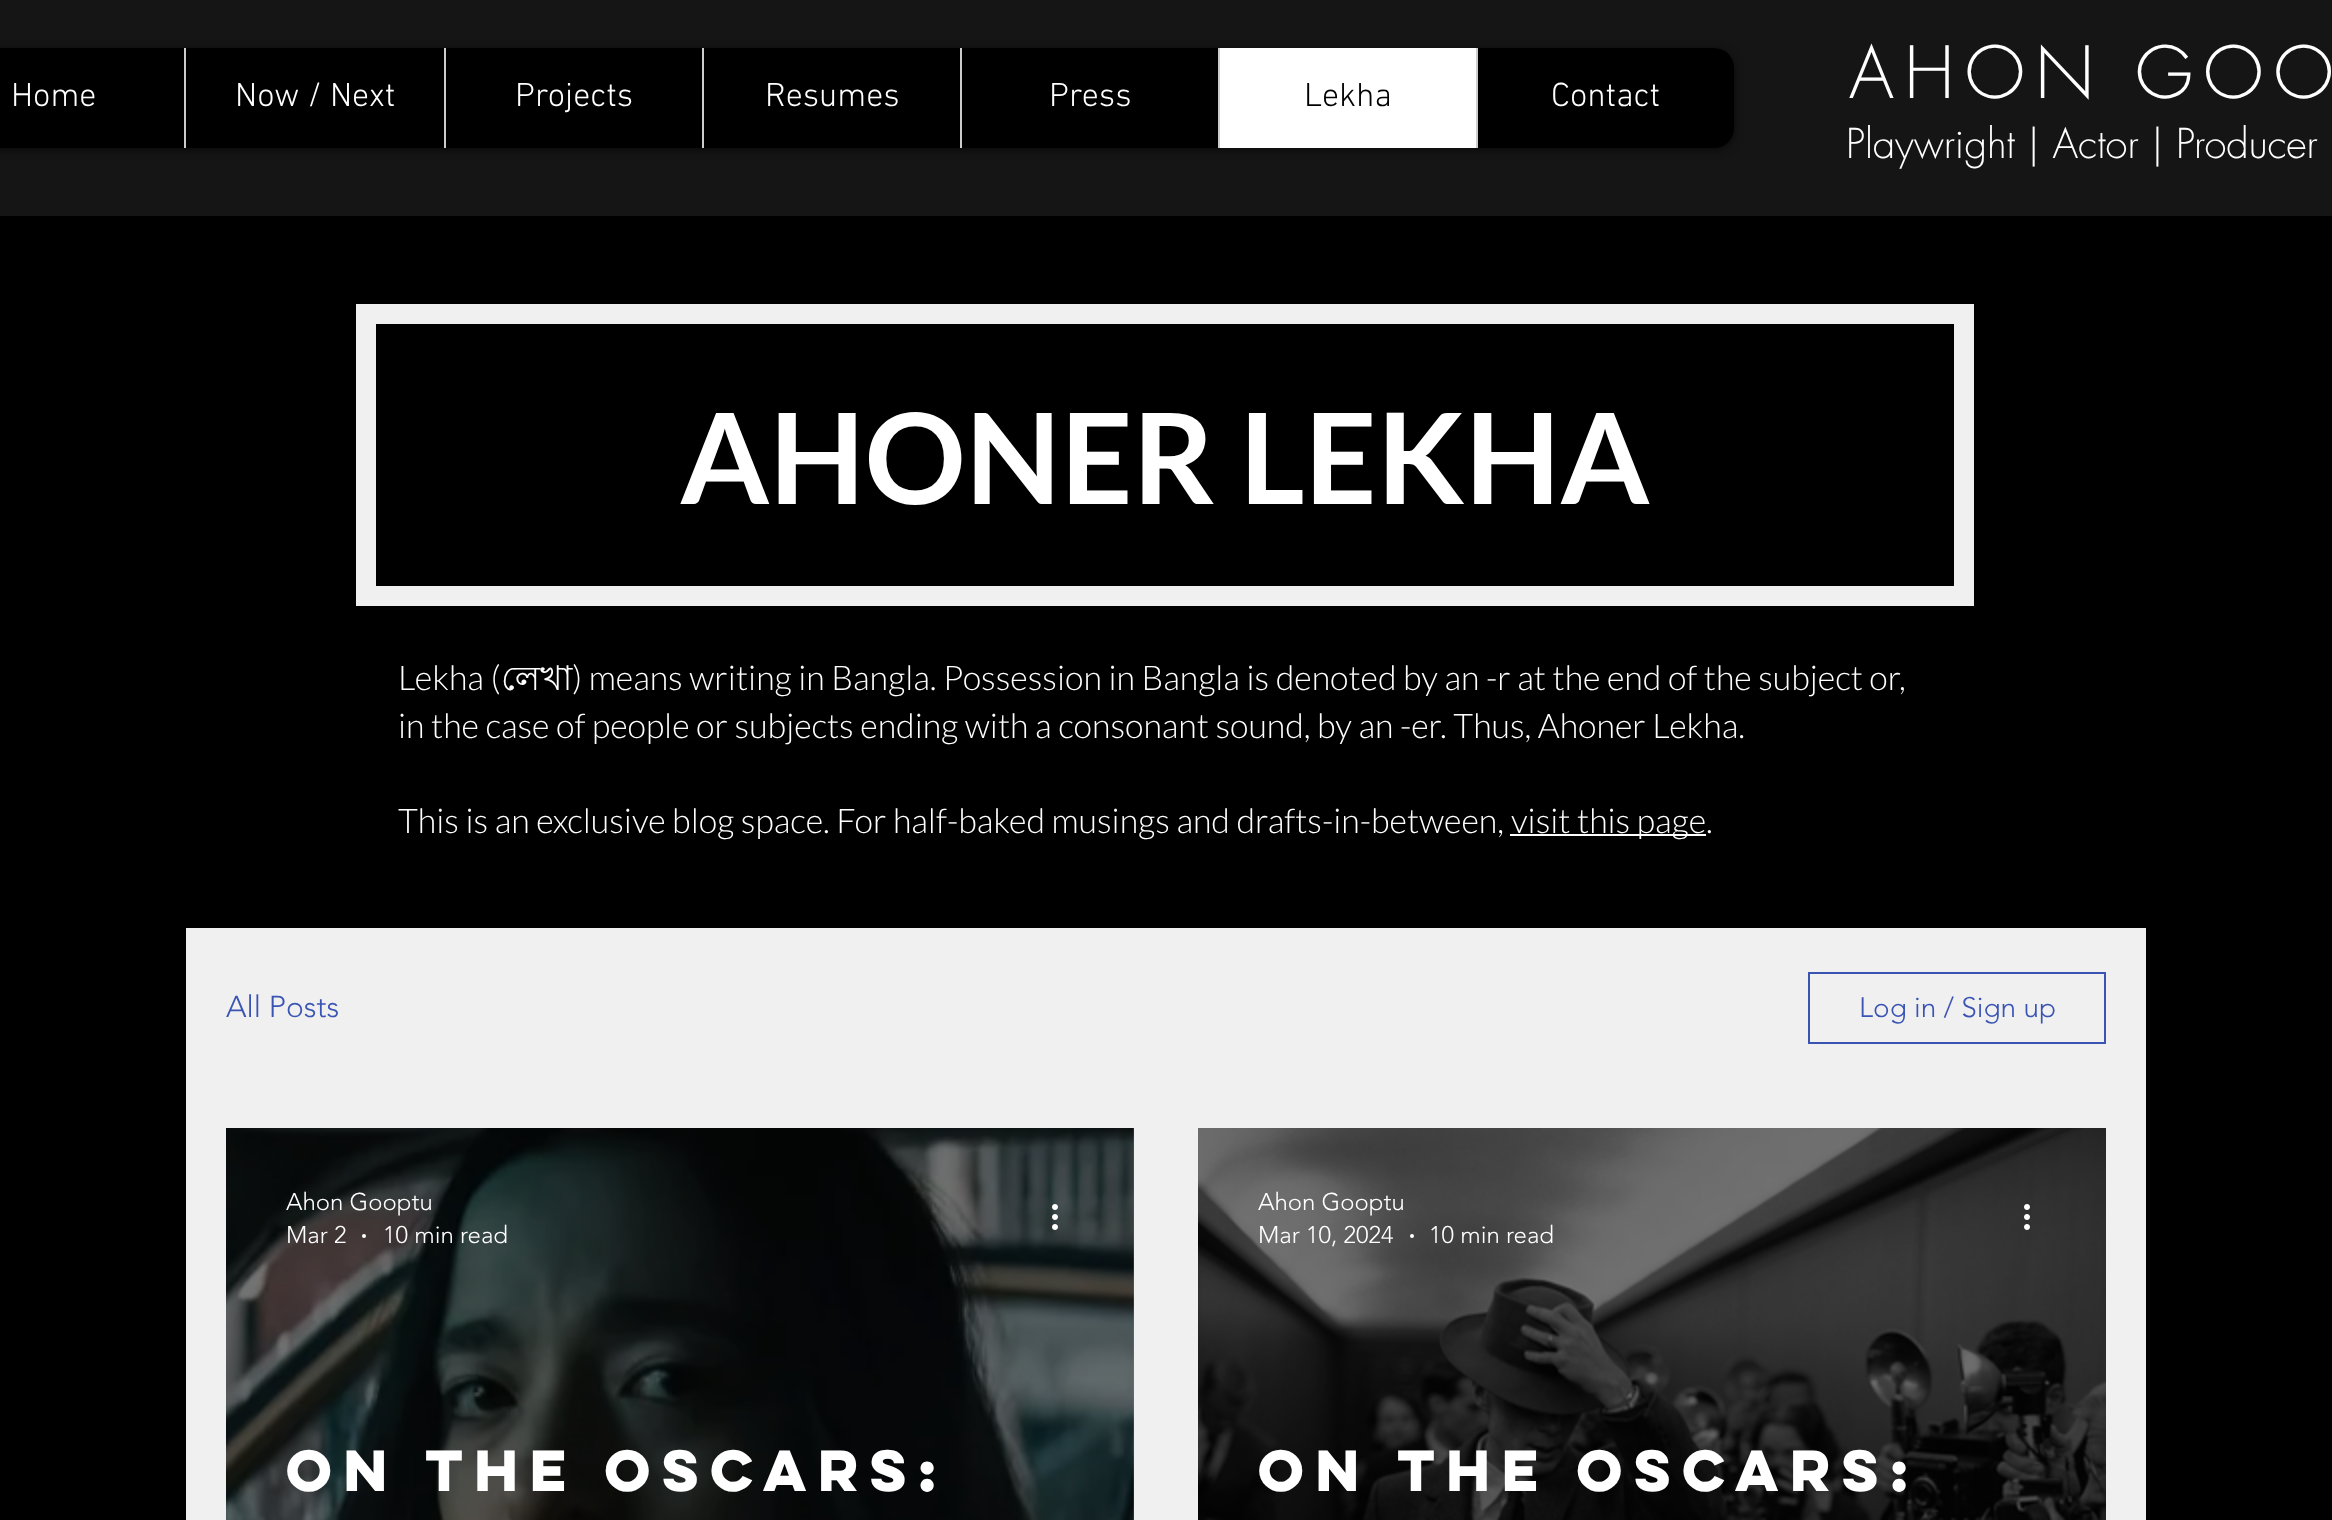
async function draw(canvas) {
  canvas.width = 2332;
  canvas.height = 1520;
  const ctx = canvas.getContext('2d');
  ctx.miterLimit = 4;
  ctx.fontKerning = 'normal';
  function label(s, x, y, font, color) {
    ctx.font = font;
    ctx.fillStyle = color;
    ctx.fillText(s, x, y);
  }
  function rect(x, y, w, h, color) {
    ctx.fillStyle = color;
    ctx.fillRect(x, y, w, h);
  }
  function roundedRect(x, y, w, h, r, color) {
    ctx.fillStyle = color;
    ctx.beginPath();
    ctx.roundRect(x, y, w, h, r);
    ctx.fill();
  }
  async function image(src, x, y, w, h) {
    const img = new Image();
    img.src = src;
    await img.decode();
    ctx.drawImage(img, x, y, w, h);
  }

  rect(0, 0, 2332, 1520, '#000');
  rect(0, 0, 2332, 216, '#151515');
  ctx.fillStyle = '#00000099';
  ctx.filter = 'blur(4px)';
  ctx.beginPath();
  ctx.roundRect(-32, 50, 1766, 100, 20);
  ctx.fill();
  ctx.filter = 'none';
  roundedRect(-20, 48, 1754, 100, 20, '#000');
  label('Home', 11, 106, '300 34px "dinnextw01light"', '#fff');
  rect(184, 48, 2, 100, '#ccc');
  label('Now / Next', 235, 106, '300 34px "dinnextw01light"', '#fff');
  rect(444, 48, 2, 100, '#ccc');
  label('Projects', 515, 106, '300 34px "dinnextw01light"', '#fff');
  rect(702, 48, 2, 100, '#ccc');
  label('Resumes', 765, 106, '300 34px "dinnextw01light"', '#fff');
  rect(960, 48, 2, 100, '#ccc');
  label('Press', 1049, 106, '300 34px "dinnextw01light"', '#fff');
  rect(1220, 48, 256, 100, '#fff');
  rect(1218, 48, 2, 100, '#ccc');
  label('Lekha', 1304, 106, '300 34px "dinnextw01light"', '#000');
  rect(1476, 48, 2, 100, '#ccc');
  label('Contact', 1551, 106, '300 34px "dinnextw01light"', '#fff');
  ctx.letterSpacing = '10.5px';
  label('AHON GOO', 1849, 98, '300 70px futura', '#fff');
  ctx.letterSpacing = '0px';
  label('Playwright | Actor | Producer', 1846, 158, '300 40px futura', '#fff');
  ctx.strokeStyle = '#f0f0f0';
  ctx.lineWidth = 20;
  ctx.strokeRect(366, 314, 1598, 282);
  label('AHONER LEKHA', 680, 504, 'bold 126px Lato', '#fff');
  label('Lekha (', 398, 690, '300 34px Lato', '#fff');
  label('লেখা', 501, 690, '34px Lohit Bengali', '#fff');
  label(') means writing in Bangla. Possession in Bangla is denoted by an -r at the end of the subject or,', 572, 690, '300 34px Lato', '#fff');
  label('in the case of people or subjects ending with a consonant sound, by an -er. Thus, Ahoner Lekha.', 398, 738, '300 34px Lato', '#fff');
  label('This is an exclusive blog space. For half-baked musings and drafts-in-between,', 398, 833, '300 34px Lato', '#fff');
  rect(1510, 834, 196, 2, '#fff');
  label('visit this page.', 1511, 833, '300 34px Lato', '#fff');
  rect(186, 928, 1960, 592, '#f0f0f0');
  label('All Posts', 226, 1017, '300 30px "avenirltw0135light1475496"', '#3a54b4');
  ctx.strokeStyle = '#3a54b4';
  ctx.lineWidth = 2;
  ctx.strokeRect(1809, 973, 296, 70);
  label('Log in / Sign up', 1859, 1017, '300 28px "avenirltw0135light1475496"', '#3a54b4');
  await image('assets/img2.png', 1133, 1128, 1, 392);
  await image('assets/img1.png', 226, 1128, 908, 392);
  label('Ahon Gooptu', 286, 1210, '300 24px "avenirltw0135light1475496"', '#fff');
  label('Mar 2', 286, 1243, '300 24px "avenirltw0135light1475496"', '#fff');
  ctx.beginPath();
  ctx.arc(364, 1236, 2, 0, 2 * Math.PI);
  ctx.fill();
  label('10 min read', 383, 1243, '300 24px "avenirltw0135light1475496"', '#fff');
  await image('assets/img3.png', 1052, 1204, 6, 26);
  label('On the Oscars:', 286, 1491, 'bold 52px "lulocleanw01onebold"', '#fff');
  await image('assets/img4.png', 1198, 1128, 908, 392);
  label('Ahon Gooptu', 1258, 1210, '300 24px "avenirltw0135light1475496"', '#fff');
  label('Mar 10, 2024', 1258, 1243, '300 24px "avenirltw0135light1475496"', '#fff');
  ctx.beginPath();
  ctx.arc(1412, 1236, 2, 0, 2 * Math.PI);
  ctx.fill();
  label('10 min read', 1429, 1243, '300 24px "avenirltw0135light1475496"', '#fff');
  await image('assets/img5.png', 2024, 1204, 6, 26);
  label('On the Oscars:', 1258, 1491, 'bold 52px "lulocleanw01onebold"', '#fff');
}

draw(document.querySelector('canvas'));
